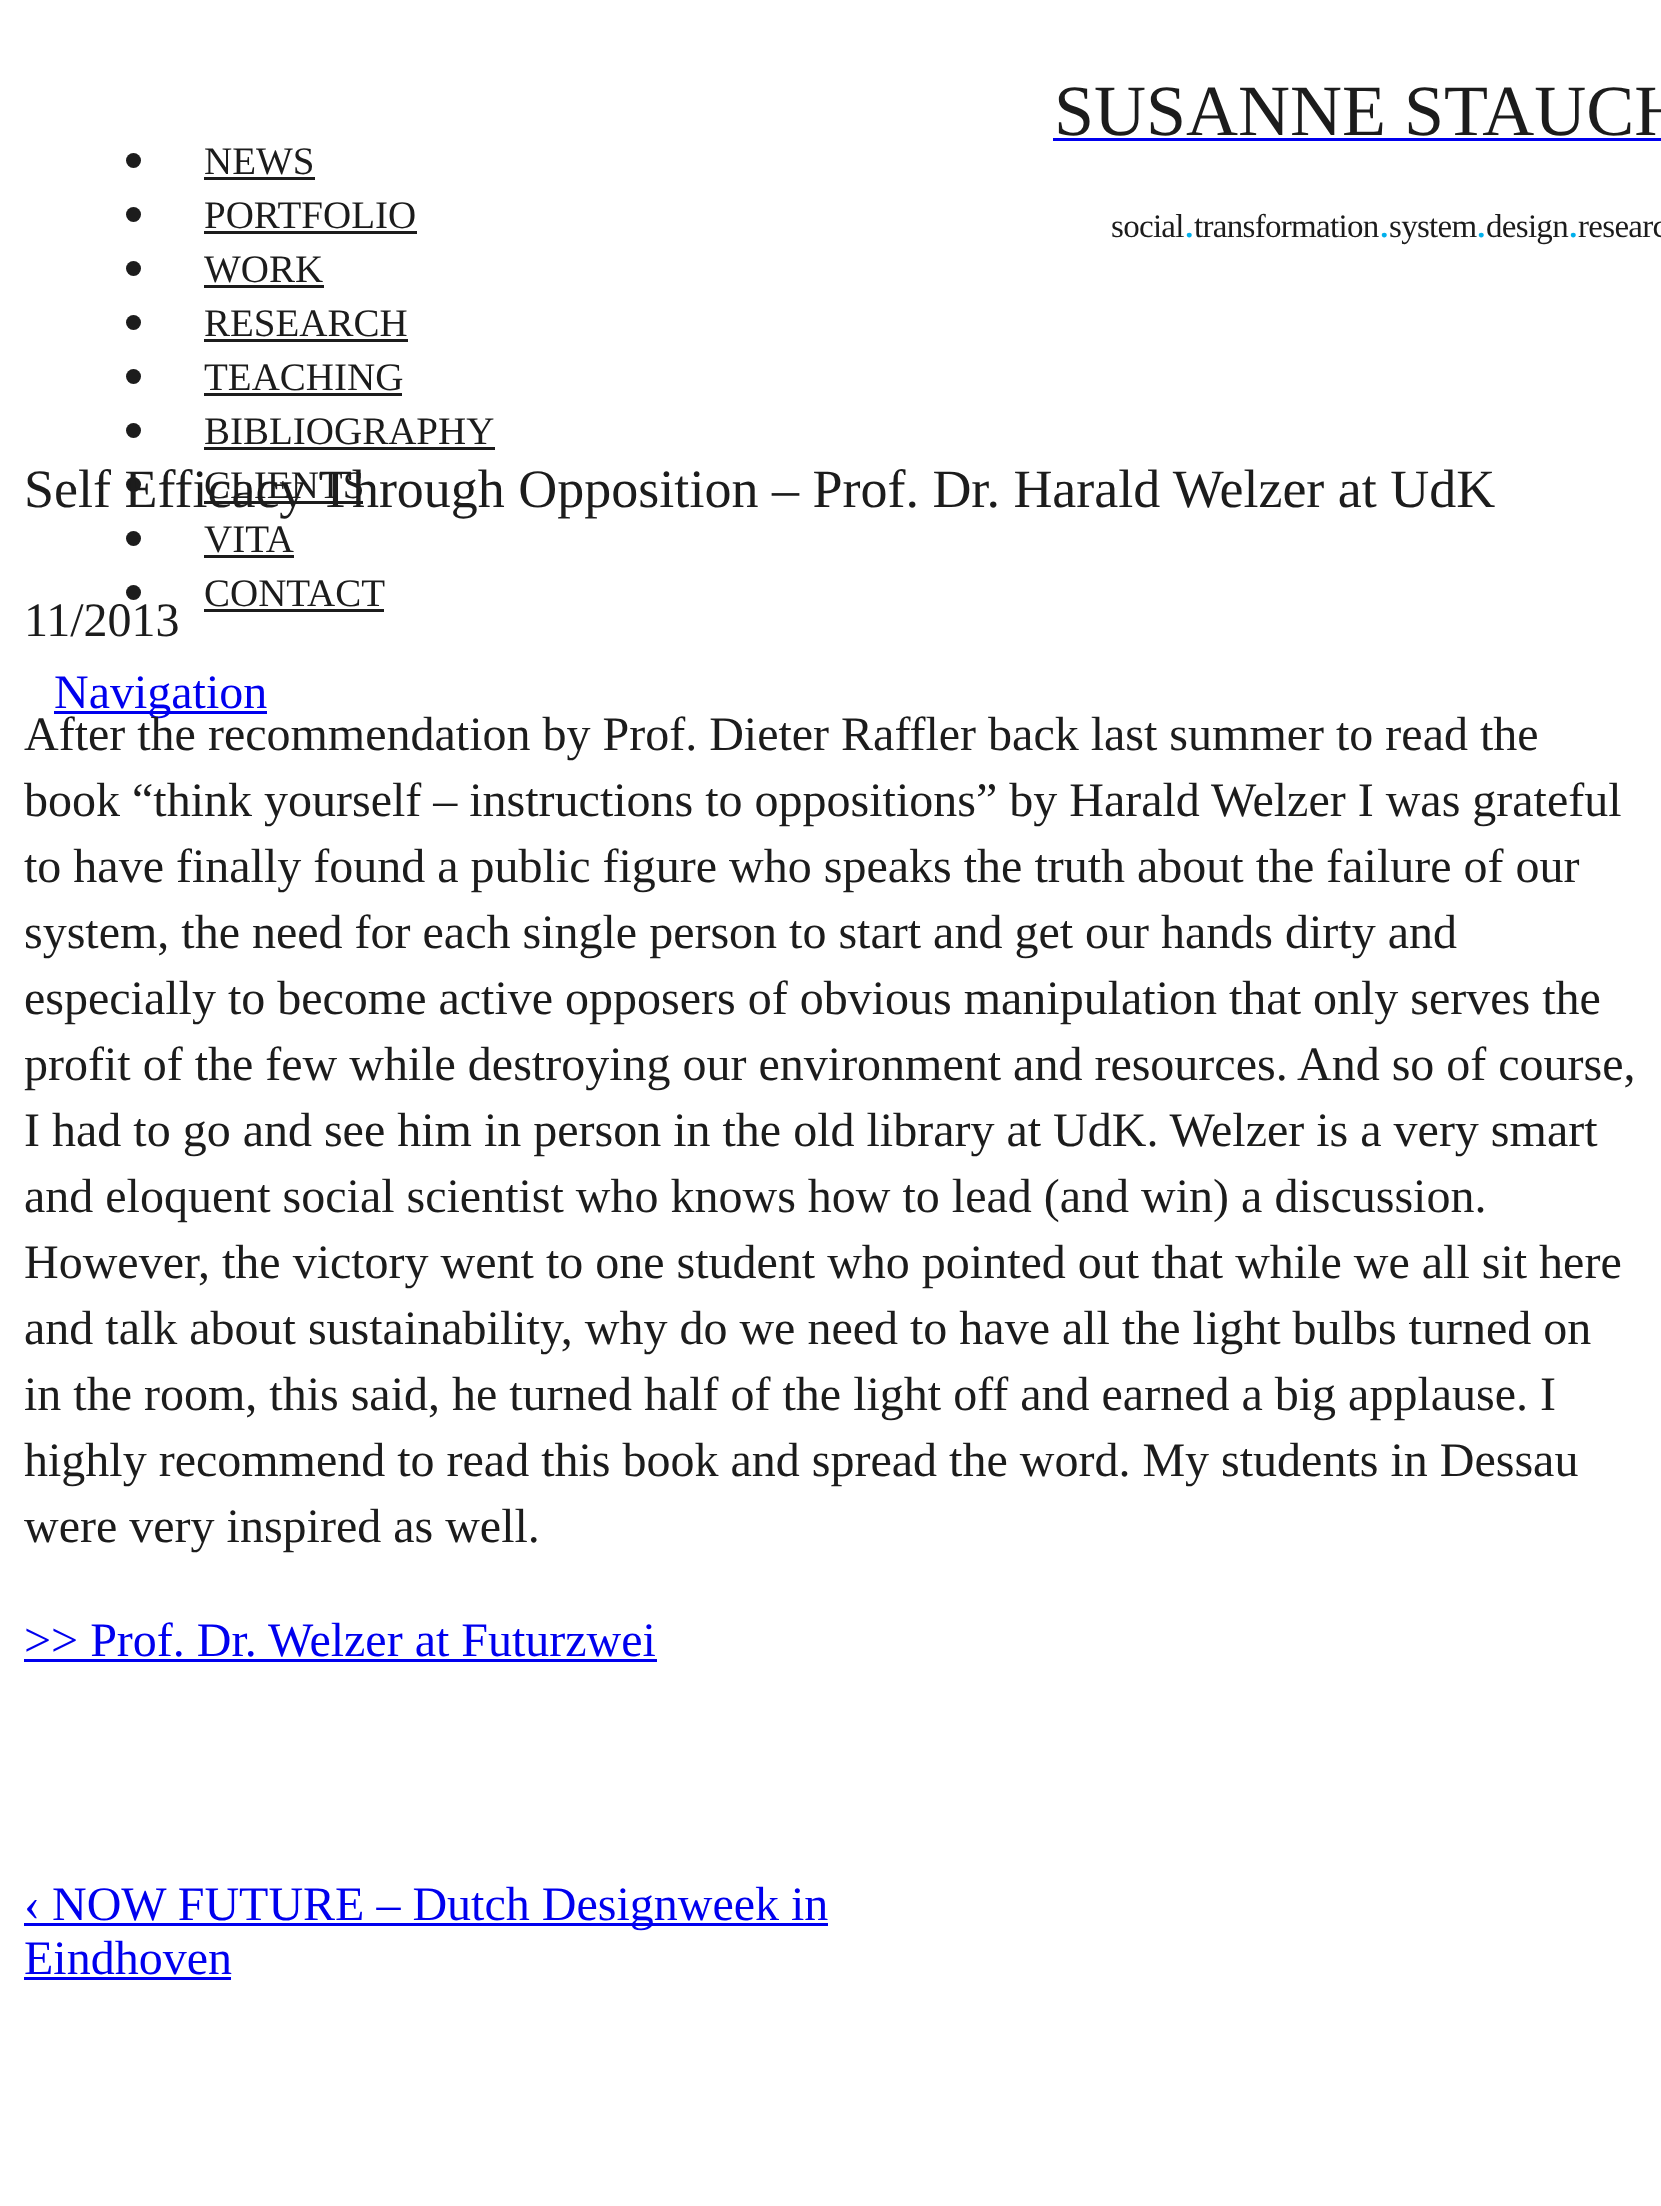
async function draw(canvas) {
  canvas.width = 1661;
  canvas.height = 2206;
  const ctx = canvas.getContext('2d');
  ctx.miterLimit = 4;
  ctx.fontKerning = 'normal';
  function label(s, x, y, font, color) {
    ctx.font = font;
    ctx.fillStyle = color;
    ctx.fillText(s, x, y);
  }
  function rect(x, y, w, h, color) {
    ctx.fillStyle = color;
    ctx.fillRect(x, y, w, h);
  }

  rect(0, 0, 1661, 2206, '#fff');
  ctx.fillStyle = '#1c1c1c';
  ctx.beginPath();
  ctx.arc(133.5, 160.5, 7.5, 0, 2 * Math.PI);
  ctx.fill();
  label('NEWS', 204, 174, '39px Liberation Serif', '#1c1c1c');
  rect(204, 177, 111, 3, '#1c1c1c');
  ctx.beginPath();
  ctx.arc(133.5, 214.5, 7.5, 0, 2 * Math.PI);
  ctx.fill();
  label('PORTFOLIO', 204, 228, '39px Liberation Serif', '#1c1c1c');
  rect(204, 231, 213, 3, '#1c1c1c');
  ctx.beginPath();
  ctx.arc(133.5, 268.5, 7.5, 0, 2 * Math.PI);
  ctx.fill();
  label('WORK', 204, 282, '39px Liberation Serif', '#1c1c1c');
  rect(204, 285, 120, 3, '#1c1c1c');
  ctx.beginPath();
  ctx.arc(133.5, 322.5, 7.5, 0, 2 * Math.PI);
  ctx.fill();
  label('RESEARCH', 204, 336, '39px Liberation Serif', '#1c1c1c');
  rect(204, 339, 204, 3, '#1c1c1c');
  ctx.beginPath();
  ctx.arc(133.5, 376.5, 7.5, 0, 2 * Math.PI);
  ctx.fill();
  label('TEACHING', 204, 390, '39px Liberation Serif', '#1c1c1c');
  rect(204, 393, 198, 3, '#1c1c1c');
  ctx.beginPath();
  ctx.arc(133.5, 430.5, 7.5, 0, 2 * Math.PI);
  ctx.fill();
  label('BIBLIOGRAPHY', 204, 444, '39px Liberation Serif', '#1c1c1c');
  rect(204, 447, 291, 3, '#1c1c1c');
  ctx.beginPath();
  ctx.arc(133.5, 484.5, 7.5, 0, 2 * Math.PI);
  ctx.fill();
  label('Self Efficacy Through Opposition – Prof. Dr. Harald Welzer at UdK', 24, 507, '54px Liberation Serif', '#1c1c1c');
  label('CLIENTS', 204, 498, '39px Liberation Serif', '#1c1c1c');
  rect(204, 501, 159, 3, '#1c1c1c');
  ctx.beginPath();
  ctx.arc(133.5, 538.5, 7.5, 0, 2 * Math.PI);
  ctx.fill();
  label('VITA', 204, 552, '39px Liberation Serif', '#1c1c1c');
  rect(204, 555, 90, 3, '#1c1c1c');
  ctx.beginPath();
  ctx.arc(133.5, 592.5, 7.5, 0, 2 * Math.PI);
  ctx.fill();
  label('CONTACT', 204, 606, '39px Liberation Serif', '#1c1c1c');
  rect(204, 609, 180, 3, '#1c1c1c');
  rect(54, 711, 213, 3, '#00e');
  label('Navigation', 54, 708, '48px Liberation Serif', '#00e');
  label('SUSANNE STAUCH', 1054, 135, '72px Liberation Serif', '#1c1c1c');
  rect(1053, 138, 608, 3, '#00e');
  ctx.letterSpacing = '-0.7px';
  label('social', 1111, 237, '33px Liberation Serif', '#1c1c1c');
  label('.', 1184, 237, '42px Liberation Serif', '#00b0ec');
  label('transformation', 1194, 237, '33px Liberation Serif', '#1c1c1c');
  label('.', 1379, 237, '42px Liberation Serif', '#00b0ec');
  label('system', 1389, 237, '33px Liberation Serif', '#1c1c1c');
  label('.', 1476, 237, '42px Liberation Serif', '#00b0ec');
  label('design', 1486, 237, '33px Liberation Serif', '#1c1c1c');
  label('.', 1568, 237, '42px Liberation Serif', '#00b0ec');
  label('researc', 1578, 237, '33px Liberation Serif', '#1c1c1c');
  ctx.letterSpacing = '0px';
  label('11/2013', 24, 636, '48px Liberation Serif', '#1c1c1c');
  label('After the recommendation by Prof. Dieter Raffler back last summer to read the', 24, 750, '48px Liberation Serif', '#1c1c1c');
  label('book “think yourself – instructions to oppositions” by Harald Welzer I was grateful', 24, 816, '48px Liberation Serif', '#1c1c1c');
  label('to have finally found a public figure who speaks the truth about the failure of our', 24, 882, '48px Liberation Serif', '#1c1c1c');
  label('system, the need for each single person to start and get our hands dirty and', 24, 948, '48px Liberation Serif', '#1c1c1c');
  label('especially to become active opposers of obvious manipulation that only serves the', 24, 1014, '48px Liberation Serif', '#1c1c1c');
  label('profit of the few while destroying our environment and resources. And so of course,', 24, 1080, '48px Liberation Serif', '#1c1c1c');
  label('I had to go and see him in person in the old library at UdK. Welzer is a very smart', 24, 1146, '48px Liberation Serif', '#1c1c1c');
  label('and eloquent social scientist who knows how to lead (and win) a discussion.', 24, 1212, '48px Liberation Serif', '#1c1c1c');
  label('However, the victory went to one student who pointed out that while we all sit here', 24, 1278, '48px Liberation Serif', '#1c1c1c');
  label('and talk about sustainability, why do we need to have all the light bulbs turned on', 24, 1344, '48px Liberation Serif', '#1c1c1c');
  label('in the room, this said, he turned half of the light off and earned a big applause. I', 24, 1410, '48px Liberation Serif', '#1c1c1c');
  label('highly recommend to read this book and spread the word. My students in Dessau', 24, 1476, '48px Liberation Serif', '#1c1c1c');
  label('were very inspired as well.', 24, 1542, '48px Liberation Serif', '#1c1c1c');
  label('>> Prof. Dr. Welzer at Futurzwei', 24, 1656, '48px Liberation Serif', '#00e');
  rect(24, 1659, 633, 3, '#00e');
  rect(24, 1923, 804, 3, '#00e');
  label('‹ NOW FUTURE – Dutch Designweek in', 24, 1920, '48px Liberation Serif', '#00e');
  label('Eindhoven', 24, 1974, '48px Liberation Serif', '#00e');
  rect(24, 1977, 207, 3, '#00e');
}

draw(document.querySelector('canvas'));
